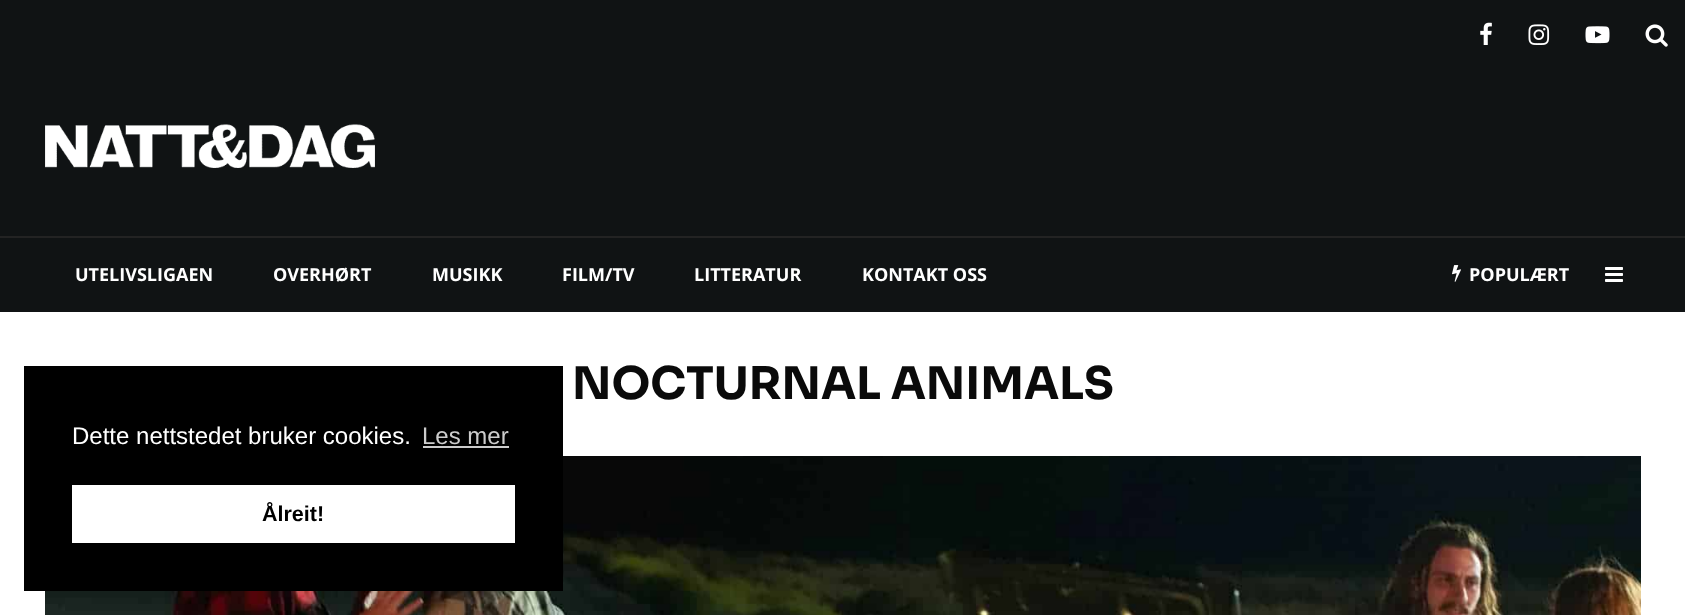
async function draw(canvas) {
  canvas.width = 1685;
  canvas.height = 615;
  const ctx = canvas.getContext('2d');
  ctx.miterLimit = 4;
  ctx.fontKerning = 'normal';
  function label(s, x, y, font, color) {
    ctx.font = font;
    ctx.fillStyle = color;
    ctx.fillText(s, x, y);
  }
  function rect(x, y, w, h, color) {
    ctx.fillStyle = color;
    ctx.fillRect(x, y, w, h);
  }
  async function image(src, x, y, w, h) {
    const img = new Image();
    img.src = src;
    await img.decode();
    ctx.drawImage(img, x, y, w, h);
  }

  rect(0, 0, 1685, 615, '#fff');
  rect(0, 0, 1685, 236, '#101314');
  await image('assets/img1.png', 45, 124, 330, 44);
  await image('assets/img2.png', 1480, 22, 12, 23);
  await image('assets/img3.png', 1528, 24, 22, 21);
  await image('assets/img4.png', 1585, 26, 25, 18);
  await image('assets/img5.png', 1645, 24, 23, 23);
  rect(0, 238, 1685, 74, '#101314');
  rect(0, 236, 1685, 2, '#232323');
  label('UTELIVSLIGAEN', 75, 281, 'bold 18px Open Sans', '#fff');
  label('OVERHØRT', 273, 281, 'bold 18px Open Sans', '#fff');
  label('MUSIKK', 432, 281, 'bold 18px Open Sans', '#fff');
  label('FILM/TV', 562, 281, 'bold 18px Open Sans', '#fff');
  label('LITTERATUR', 694, 281, 'bold 18px Open Sans', '#fff');
  label('KONTAKT OSS', 862, 281, 'bold 18px Open Sans', '#fff');
  await image('assets/img6.png', 1452, 265, 9, 17);
  label('POPULÆRT', 1469, 281, 'bold 18px Open Sans', '#fff');
  await image('assets/img7.png', 1605, 267, 18, 15);
  label('NOCTURNAL ANIMALS', 572, 399, 'bold 45px Sora', '#0a0a0a');
  await image('assets/img8.png', 45, 456, 1596, 159);
  rect(24, 366, 539, 225, '#000');
  label('Dette nettstedet bruker cookies.', 72, 444, '24px Liberation Sans', '#fff');
  label('Les mer', 422, 444, '24px Liberation Sans', '#ccc');
  rect(423, 446, 86, 2, '#ccc');
  rect(72, 485, 443, 58, '#fff');
  label('Ålreit!', 262, 521, 'bold 21.5px Liberation Sans', '#000');
}

draw(document.querySelector('canvas'));
